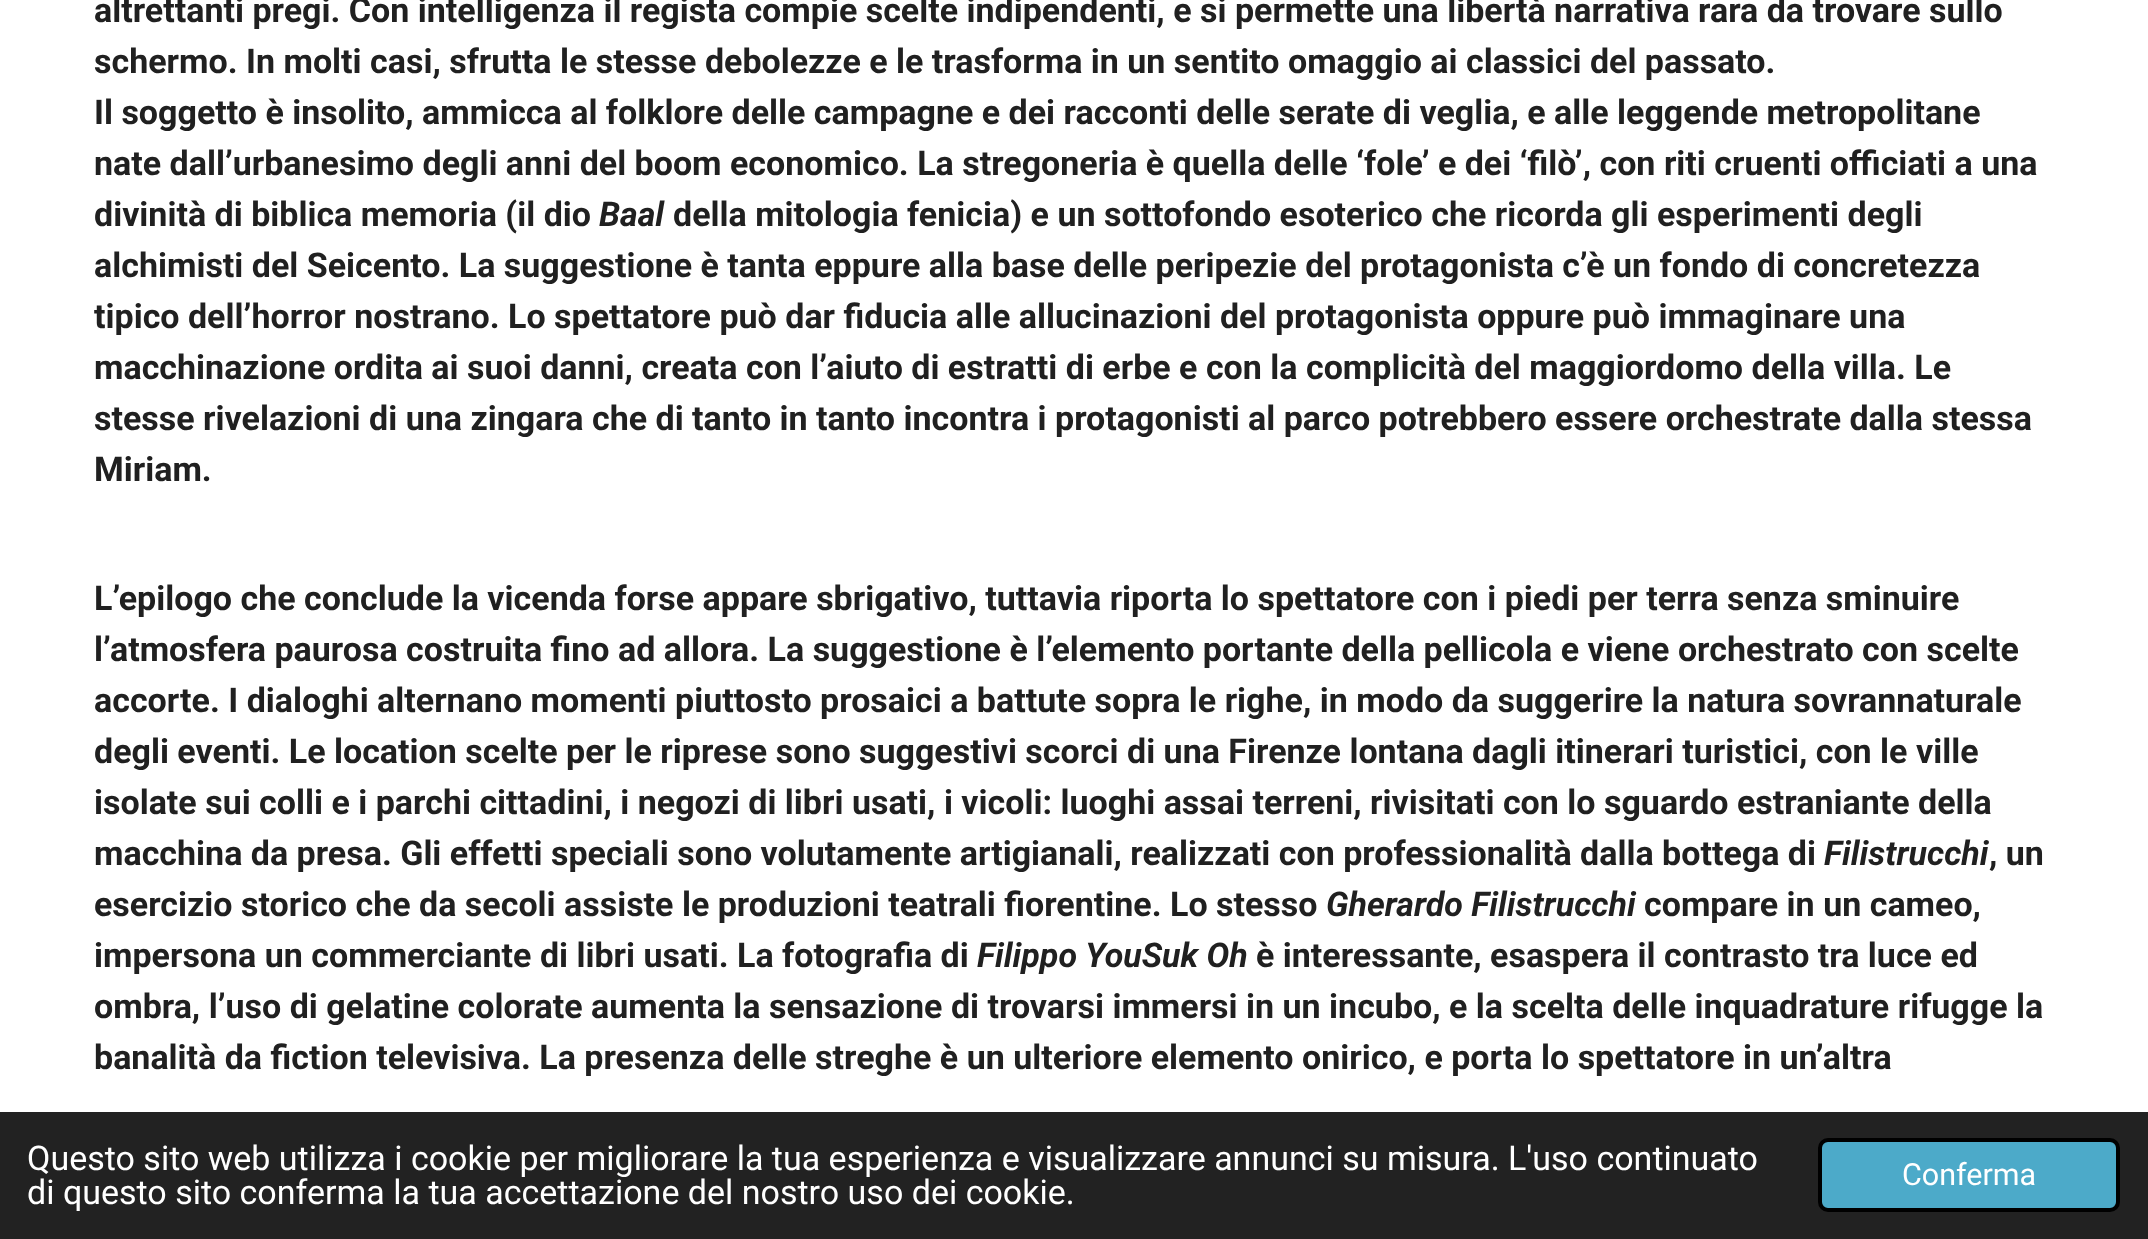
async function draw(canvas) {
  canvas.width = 2148;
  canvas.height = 1239;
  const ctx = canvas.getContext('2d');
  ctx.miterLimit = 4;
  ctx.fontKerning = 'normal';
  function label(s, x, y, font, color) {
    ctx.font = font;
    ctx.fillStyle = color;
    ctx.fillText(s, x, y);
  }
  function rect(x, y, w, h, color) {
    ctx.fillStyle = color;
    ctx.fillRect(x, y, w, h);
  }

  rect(0, 0, 2148, 1239, '#fff');
  label('altrettanti pregi. Con intelligenza il regista compie scelte indipendenti, e si permette una libertà narrativa rara da trovare sullo', 94, 22, 'bold 34px Roboto', '#202020');
  label('schermo. In molti casi, sfrutta le stesse debolezze e le trasforma in un sentito omaggio ai classici del passato.', 94, 73, 'bold 34px Roboto', '#202020');
  label('Il soggetto è insolito, ammicca al folklore delle campagne e dei racconti delle serate di veglia, e alle leggende metropolitane', 94, 124, 'bold 34px Roboto', '#202020');
  label('nate dall’urbanesimo degli anni del boom economico. La stregoneria è quella delle ‘fole’ e dei ‘filò’, con riti cruenti officiati a una', 94, 175, 'bold 34px Roboto', '#202020');
  label('divinità di biblica memoria (il dio', 94, 226, 'bold 34px Roboto', '#202020');
  label('Baal', 599, 226, 'italic bold 34px Roboto', '#202020');
  label('della mitologia fenicia) e un sottofondo esoterico che ricorda gli esperimenti degli', 673, 226, 'bold 34px Roboto', '#202020');
  label('alchimisti del Seicento. La suggestione è tanta eppure alla base delle peripezie del protagonista c’è un fondo di concretezza', 94, 277, 'bold 34px Roboto', '#202020');
  label('tipico dell’horror nostrano. Lo spettatore può dar fiducia alle allucinazioni del protagonista oppure può immaginare una', 94, 328, 'bold 34px Roboto', '#202020');
  label('macchinazione ordita ai suoi danni, creata con l’aiuto di estratti di erbe e con la complicità del maggiordomo della villa. Le', 94, 379, 'bold 34px Roboto', '#202020');
  label('stesse rivelazioni di una zingara che di tanto in tanto incontra i protagonisti al parco potrebbero essere orchestrate dalla stessa', 94, 430, 'bold 34px Roboto', '#202020');
  label('Miriam.', 94, 481, 'bold 34px Roboto', '#202020');
  label('L’epilogo che conclude la vicenda forse appare sbrigativo, tuttavia riporta lo spettatore con i piedi per terra senza sminuire', 94, 610, 'bold 34px Roboto', '#202020');
  label('l’atmosfera paurosa costruita fino ad allora. La suggestione è l’elemento portante della pellicola e viene orchestrato con scelte', 94, 661, 'bold 34px Roboto', '#202020');
  label('accorte. I dialoghi alternano momenti piuttosto prosaici a battute sopra le righe, in modo da suggerire la natura sovrannaturale', 94, 712, 'bold 34px Roboto', '#202020');
  label('degli eventi. Le location scelte per le riprese sono suggestivi scorci di una Firenze lontana dagli itinerari turistici, con le ville', 94, 763, 'bold 34px Roboto', '#202020');
  label('isolate sui colli e i parchi cittadini, i negozi di libri usati, i vicoli: luoghi assai terreni, rivisitati con lo sguardo estraniante della', 94, 814, 'bold 34px Roboto', '#202020');
  label('macchina da presa. Gli effetti speciali sono volutamente artigianali, realizzati con professionalità dalla bottega di', 94, 865, 'bold 34px Roboto', '#202020');
  label('Filistrucchi', 1824, 865, 'italic bold 34px Roboto', '#202020');
  label(', un', 1989, 865, 'bold 34px Roboto', '#202020');
  label('esercizio storico che da secoli assiste le produzioni teatrali fiorentine. Lo stesso', 94, 916, 'bold 34px Roboto', '#202020');
  label('Gherardo Filistrucchi', 1326, 916, 'italic bold 34px Roboto', '#202020');
  label('compare in un cameo,', 1644, 916, 'bold 34px Roboto', '#202020');
  label('impersona un commerciante di libri usati. La fotografia di', 94, 967, 'bold 34px Roboto', '#202020');
  label('Filippo YouSuk Oh', 977, 967, 'italic bold 34px Roboto', '#202020');
  label('è interessante, esaspera il contrasto tra luce ed', 1256, 967, 'bold 34px Roboto', '#202020');
  label('ombra, l’uso di gelatine colorate aumenta la sensazione di trovarsi immersi in un incubo, e la scelta delle inquadrature rifugge la', 94, 1018, 'bold 34px Roboto', '#202020');
  label('banalità da fiction televisiva. La presenza delle streghe è un ulteriore elemento onirico, e porta lo spettatore in un’altra', 94, 1069, 'bold 34px Roboto', '#202020');
  rect(0, 1112, 2148, 127, '#222');
  label('Questo sito web utilizza i cookie per migliorare la tua esperienza e visualizzare annunci su misura. L\'uso continuato', 27, 1170, '34px Roboto', '#fff');
  label('di questo sito conferma la tua accettazione del nostro uso dei cookie.', 27, 1204, '34px Roboto', '#fff');
  ctx.fillStyle = '#4caac9';
  ctx.beginPath();
  ctx.roundRect(1820, 1140, 298, 70, 8);
  ctx.fill();
  ctx.strokeStyle = '#000';
  ctx.lineWidth = 4;
  ctx.stroke();
  label('Conferma', 1902, 1185, '30.5px Roboto', '#fff');
}

draw(document.querySelector('canvas'));
